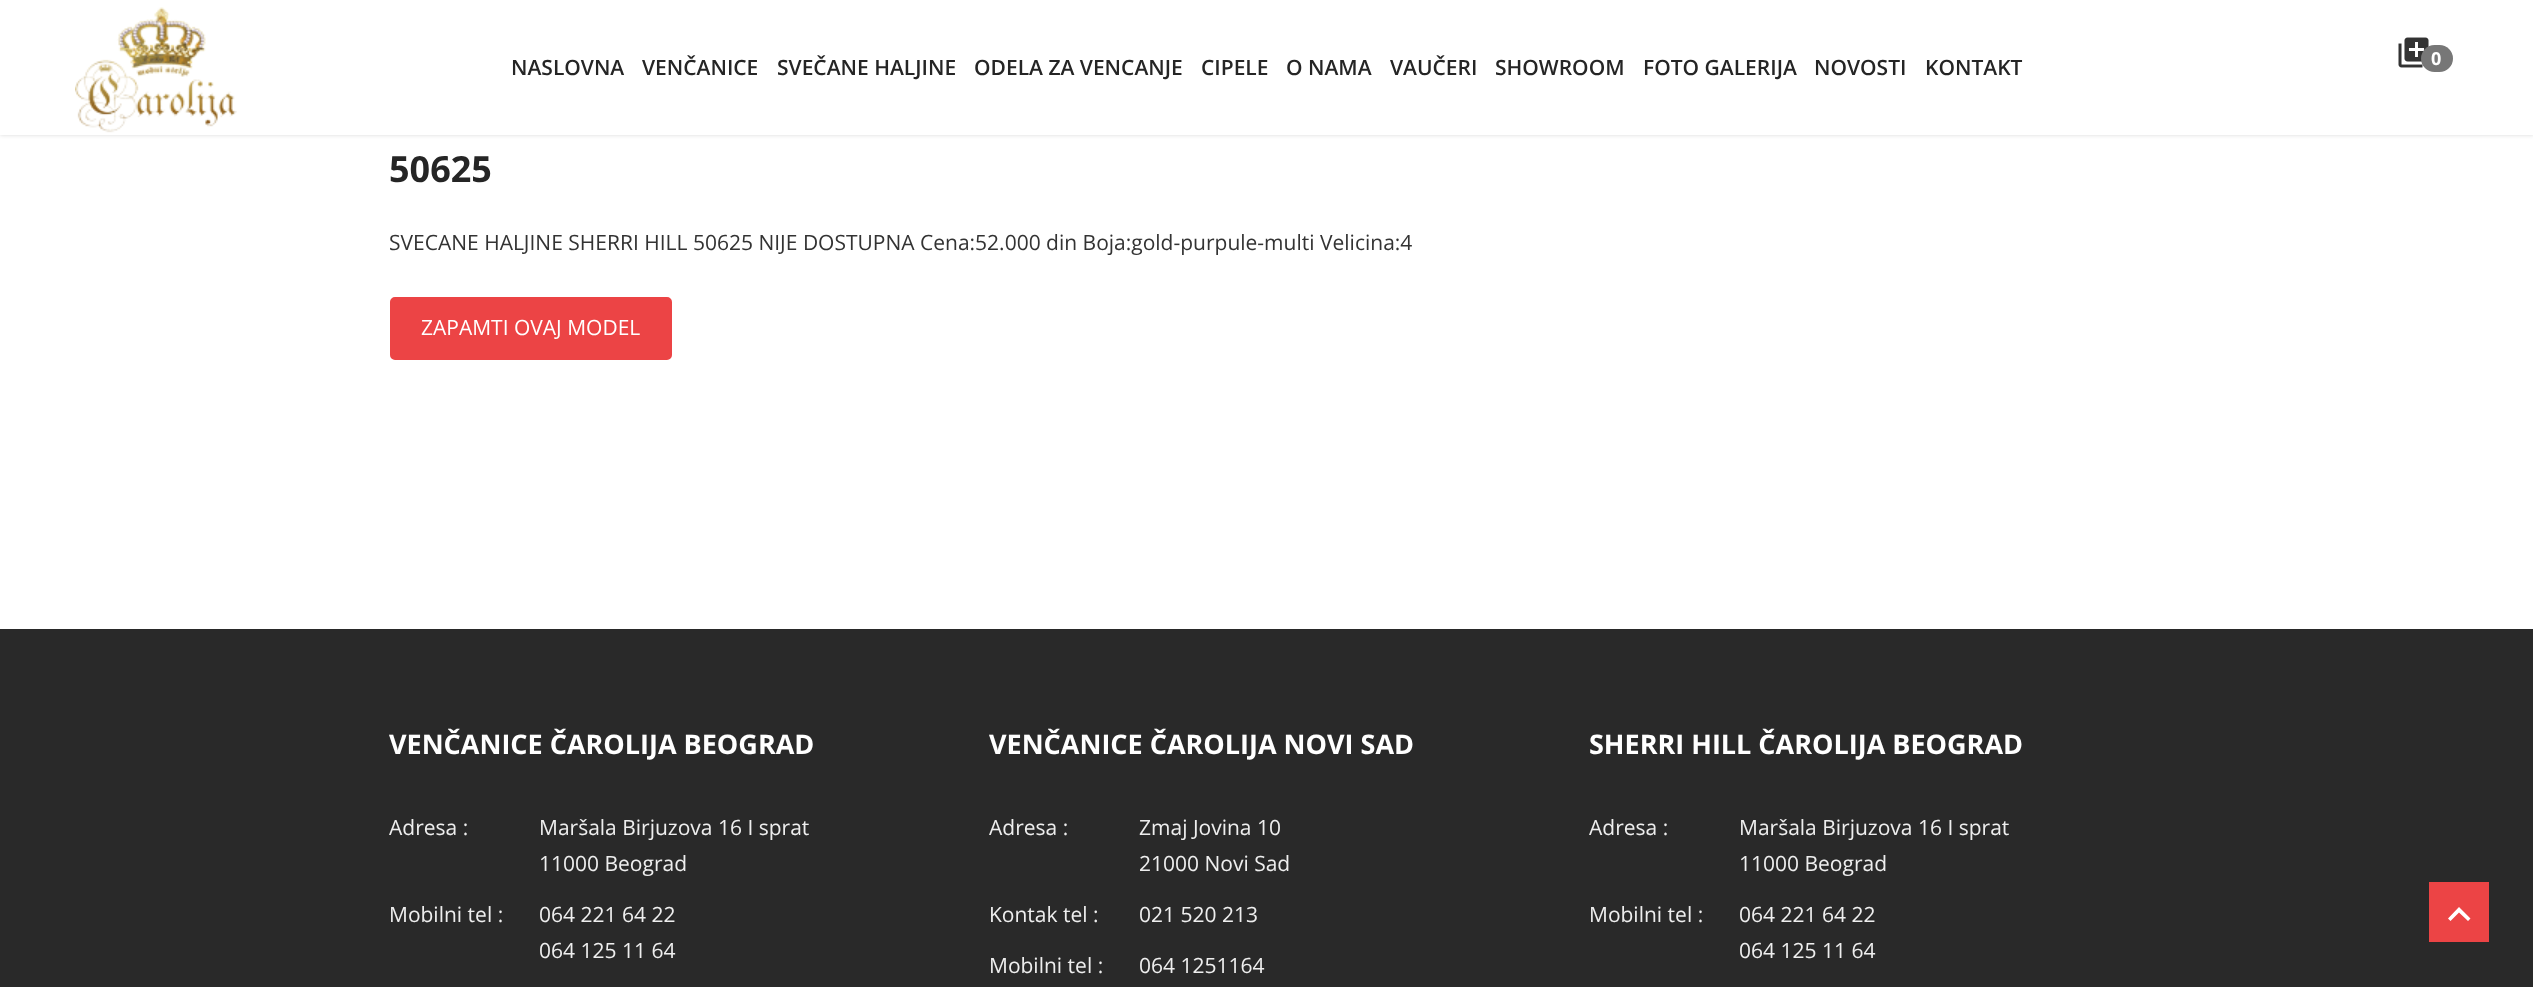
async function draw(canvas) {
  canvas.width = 2533;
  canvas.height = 987;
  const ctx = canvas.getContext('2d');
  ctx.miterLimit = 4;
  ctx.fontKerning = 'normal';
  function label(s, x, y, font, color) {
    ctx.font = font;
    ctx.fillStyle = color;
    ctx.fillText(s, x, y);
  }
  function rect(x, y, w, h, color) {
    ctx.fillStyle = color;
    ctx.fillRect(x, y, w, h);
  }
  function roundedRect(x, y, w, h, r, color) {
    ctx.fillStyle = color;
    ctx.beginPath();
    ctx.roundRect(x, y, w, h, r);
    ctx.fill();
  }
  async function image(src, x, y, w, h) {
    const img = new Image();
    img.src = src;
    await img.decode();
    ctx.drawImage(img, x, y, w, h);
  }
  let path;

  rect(0, 0, 2533, 987, '#fff');
  ctx.fillStyle = '#00000026';
  ctx.filter = 'blur(2px)';
  ctx.beginPath();
  ctx.rect(0, 0, 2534, 135);
  ctx.fill();
  ctx.filter = 'none';
  rect(0, 0, 2533, 135, '#fff');
  await image('assets/img1.png', 75, 7, 162, 126);
  label('NASLOVNA', 511, 75, '600 21px Open Sans', '#252525');
  label('VENČANICE', 642, 75, '600 21px Open Sans', '#252525');
  label('SVEČANE HALJINE', 777, 75, '600 21px Open Sans', '#252525');
  label('ODELA ZA VENCANJE', 974, 75, '600 21px Open Sans', '#252525');
  label('CIPELE', 1201, 75, '600 21px Open Sans', '#252525');
  label('O NAMA', 1286, 75, '600 21px Open Sans', '#252525');
  label('VAUČERI', 1390, 75, '600 21px Open Sans', '#252525');
  label('SHOWROOM', 1495, 75, '600 21px Open Sans', '#252525');
  label('FOTO GALERIJA', 1643, 75, '600 21px Open Sans', '#252525');
  label('NOVOSTI', 1814, 75, '600 21px Open Sans', '#252525');
  label('KONTAKT', 1925, 75, '600 21px Open Sans', '#252525');
  await image('assets/img2.png', 2398, 37, 31, 31);
  roundedRect(2421, 45, 32, 27, 13.5, '#777');
  label('0', 2431, 65, 'bold 18px Open Sans', '#fff');
  label('50625', 389, 182, 'bold 36px Open Sans', '#252525');
  label('SVECANE HALJINE SHERRI HILL 50625 NIJE DOSTUPNA Cena:52.000 din Boja:gold-purpule-multi Velicina:4', 389, 250, '21px Open Sans', '#333');
  ctx.fillStyle = '#ec4445';
  ctx.beginPath();
  ctx.roundRect(391, 298, 280, 61, 4);
  ctx.fill();
  ctx.strokeStyle = '#ec4445';
  ctx.lineWidth = 2;
  ctx.stroke();
  label('ZAPAMTI OVAJ MODEL', 421, 335, '21px Open Sans', '#fff');
  rect(0, 629, 2533, 358, '#292929');
  label('VENČANICE ČAROLIJA BEOGRAD', 389, 754, 'bold 27px Open Sans', '#fff');
  label('Adresa :', 389, 835, '21px Open Sans', '#eee');
  label('Maršala Birjuzova 16 I sprat', 539, 835, '21px Open Sans', '#eee');
  label('11000 Beograd', 539, 871, '21px Open Sans', '#eee');
  label('Mobilni tel :', 389, 922, '21px Open Sans', '#eee');
  label('064 221 64 22', 539, 922, '21px Open Sans', '#eee');
  label('064 125 11 64', 539, 958, '21px Open Sans', '#eee');
  label('VENČANICE ČAROLIJA NOVI SAD', 989, 754, 'bold 27px Open Sans', '#fff');
  label('Adresa :', 989, 835, '21px Open Sans', '#eee');
  label('Zmaj Jovina 10', 1139, 835, '21px Open Sans', '#eee');
  label('21000 Novi Sad', 1139, 871, '21px Open Sans', '#eee');
  label('Kontak tel :', 989, 922, '21px Open Sans', '#eee');
  label('021 520 213', 1139, 922, '21px Open Sans', '#eee');
  label('Mobilni tel :', 989, 973, '21px Open Sans', '#eee');
  label('064 1251164', 1139, 973, '21px Open Sans', '#eee');
  label('SHERRI HILL ČAROLIJA BEOGRAD', 1589, 754, 'bold 27px Open Sans', '#fff');
  label('Adresa :', 1589, 835, '21px Open Sans', '#eee');
  label('Maršala Birjuzova 16 I sprat', 1739, 835, '21px Open Sans', '#eee');
  label('11000 Beograd', 1739, 871, '21px Open Sans', '#eee');
  label('Mobilni tel :', 1589, 922, '21px Open Sans', '#eee');
  label('064 221 64 22', 1739, 922, '21px Open Sans', '#eee');
  label('064 125 11 64', 1739, 958, '21px Open Sans', '#eee');
  rect(2429, 882, 60, 60, '#ec4445');
  ctx.fillStyle = '#fff';
  path = new Path2D('M2459 907L2470.5 918.5L2468 921L2459 912.5L2450.5 921L2448 918.5Z');
  ctx.fill(path);
}

draw(document.querySelector('canvas'));
